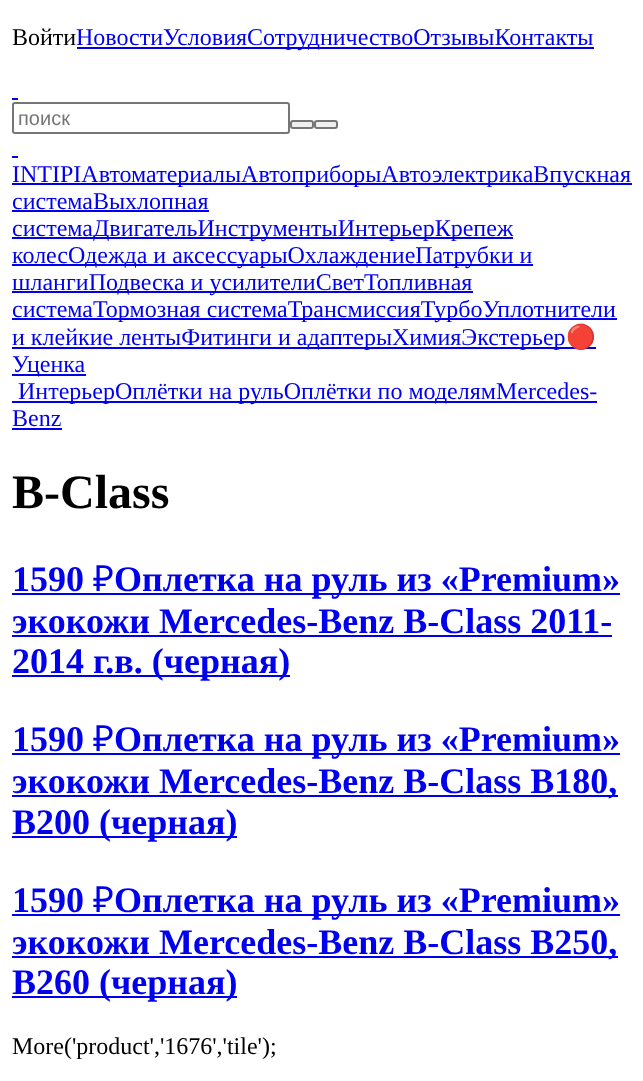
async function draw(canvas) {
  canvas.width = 643;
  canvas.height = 1081;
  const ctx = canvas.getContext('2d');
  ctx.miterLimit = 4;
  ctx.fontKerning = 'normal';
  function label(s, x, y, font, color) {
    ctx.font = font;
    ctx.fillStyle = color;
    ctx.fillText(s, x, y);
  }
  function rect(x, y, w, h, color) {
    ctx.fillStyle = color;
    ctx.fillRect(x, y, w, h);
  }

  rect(0, 0, 643, 1081, '#fff');
  label('Войти', 12, 45, '24px Liberation Serif', '#000');
  rect(77, 47, 517, 2, '#00e');
  label('НовостиУсловияСотрудничествоОтзывыКонтакты', 76, 45, '24px Liberation Serif', '#00e');
  rect(12, 98, 6, 2, '#00e');
  ctx.beginPath();
  ctx.roundRect(13, 103, 276, 30, 2);
  ctx.strokeStyle = '#767676';
  ctx.lineWidth = 2;
  ctx.stroke();
  label('поиск', 18, 125, '20px Liberation Sans', '#757575');
  ctx.fillStyle = '#efefef';
  ctx.beginPath();
  ctx.roundRect(291, 121, 22, 7, 2);
  ctx.fill();
  ctx.stroke();
  ctx.beginPath();
  ctx.roundRect(315, 121, 22, 7, 2);
  ctx.fill();
  ctx.stroke();
  rect(12, 156, 6, 2, '#00e');
  rect(12, 183, 620, 2, '#00e');
  label('INTIPIАвтоматериалыАвтоприборыАвтоэлектрикаВпускная', 12, 182, '24px Liberation Serif', '#00e');
  label('системаВыхлопная', 12, 209, '24px Liberation Serif', '#00e');
  rect(12, 210, 197, 2, '#00e');
  rect(12, 237, 501, 2, '#00e');
  label('системаДвигательИнструментыИнтерьерКрепеж', 12, 236, '24px Liberation Serif', '#00e');
  rect(12, 264, 521, 2, '#00e');
  label('колесОдежда и аксессуарыОхлаждениеПатрубки и', 12, 263, '24px Liberation Serif', '#00e');
  rect(12, 291, 303, 2, '#00e');
  label('шлангиПодвеска и усилителиСветТопливная', 12, 290, '24px Liberation Serif', '#00e');
  rect(315, 291, 158, 2, '#00e');
  rect(12, 318, 605, 2, '#00e');
  label('системаТормозная системаТрансмиссияТурбоУплотнители', 12, 317, '24px Liberation Serif', '#00e');
  rect(12, 347, 584, 2, '#00e');
  label('и клейкие лентыФитинги и адаптерыХимияЭкстерьер', 12, 345, '24px Liberation Serif', '#00e');
  label('🔴', 566, 345, '24px Noto Color Emoji', '#00e');
  rect(12, 374, 74, 2, '#00e');
  label('Уценка', 12, 372, '24px Liberation Serif', '#00e');
  rect(12, 401, 585, 2, '#00e');
  label('ИнтерьерОплётки на рульОплётки по моделямMercedes-', 18, 399, '24px Liberation Serif', '#00e');
  label('Benz', 12, 426, '24px Liberation Serif', '#00e');
  rect(12, 428, 50, 2, '#00e');
  label('B-Class', 12, 508, 'bold 48px Liberation Serif', '#000');
  label('1590', 12, 591, 'bold 36px Liberation Serif', '#00e');
  rect(12, 593, 608, 2, '#00e');
  label('₽', 93, 591, '36px Noto Sans', '#00e');
  label('Оплетка на руль из «Premium»', 114, 591, 'bold 36px Liberation Serif', '#00e');
  label('экокожи Mercedes-Benz B-Class 2011-', 12, 633, 'bold 36px Liberation Serif', '#00e');
  rect(12, 635, 600, 2, '#00e');
  rect(12, 675, 278, 2, '#00e');
  label('2014 г.в. (черная)', 12, 673, 'bold 36px Liberation Serif', '#00e');
  label('1590', 12, 751, 'bold 36px Liberation Serif', '#00e');
  rect(12, 753, 608, 2, '#00e');
  label('₽', 93, 751, '36px Noto Sans', '#00e');
  label('Оплетка на руль из «Premium»', 114, 751, 'bold 36px Liberation Serif', '#00e');
  rect(12, 795, 606, 2, '#00e');
  label('экокожи Mercedes-Benz B-Class B180,', 12, 793, 'bold 36px Liberation Serif', '#00e');
  rect(12, 836, 225, 2, '#00e');
  label('B200 (черная)', 12, 834, 'bold 36px Liberation Serif', '#00e');
  label('1590', 12, 912, 'bold 36px Liberation Serif', '#00e');
  rect(12, 914, 608, 2, '#00e');
  label('₽', 93, 912, '36px Noto Sans', '#00e');
  label('Оплетка на руль из «Premium»', 114, 912, 'bold 36px Liberation Serif', '#00e');
  rect(12, 956, 606, 2, '#00e');
  label('экокожи Mercedes-Benz B-Class B250,', 12, 954, 'bold 36px Liberation Serif', '#00e');
  rect(12, 996, 225, 2, '#00e');
  label('B260 (черная)', 12, 994, 'bold 36px Liberation Serif', '#00e');
  label('More(\'product\',\'1676\',\'tile\');', 12, 1054, '24px Liberation Serif', '#000');
}

draw(document.querySelector('canvas'));
